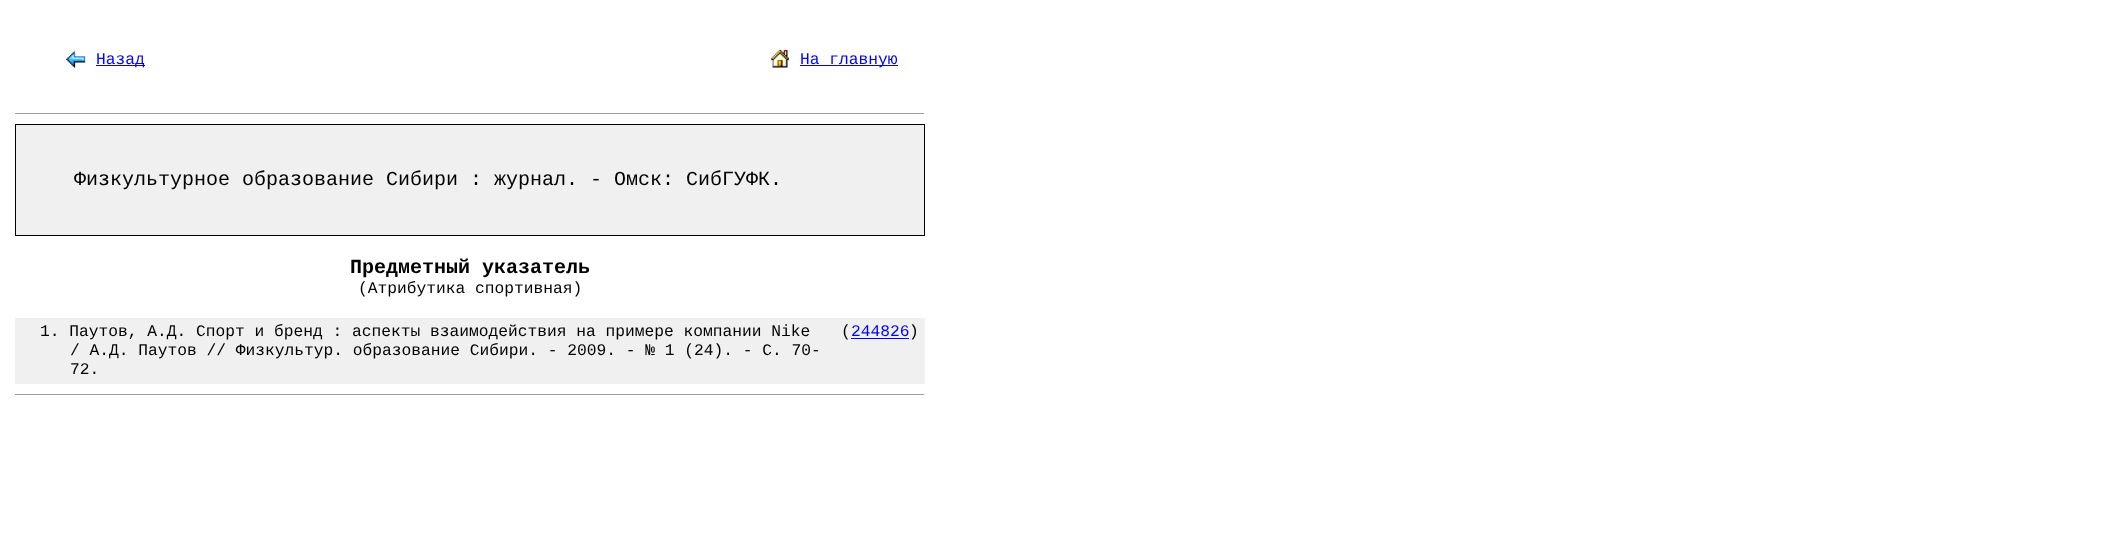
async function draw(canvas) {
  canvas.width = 2122;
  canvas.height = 541;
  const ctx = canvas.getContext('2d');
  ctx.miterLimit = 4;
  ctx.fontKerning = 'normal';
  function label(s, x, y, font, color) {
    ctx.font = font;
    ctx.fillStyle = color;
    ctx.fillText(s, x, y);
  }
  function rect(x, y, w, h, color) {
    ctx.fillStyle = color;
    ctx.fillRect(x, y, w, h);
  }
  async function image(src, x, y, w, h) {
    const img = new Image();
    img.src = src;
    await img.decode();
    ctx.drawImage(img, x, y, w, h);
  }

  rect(0, 0, 2122, 541, '#fff');
  await image('assets/img1.png', 66, 51, 20, 17);
  rect(96, 65, 49, 1, '#00f');
  label('Назад', 96, 64, '16.25px Liberation Mono', '#00f');
  await image('assets/img2.png', 771, 49, 18, 19);
  rect(800, 65, 98, 1, '#00f');
  label('На главную', 800, 64, '16.25px Liberation Mono', '#00f');
  rect(15, 113, 910, 1, '#9f9f9f');
  rect(924, 113, 1, 1, '#eee');
  rect(16, 125, 908, 110, '#f0f0f0');
  rect(15, 124, 910, 1, '#000');
  rect(924, 124, 1, 112, '#000');
  rect(15, 235, 910, 1, '#000');
  rect(15, 124, 1, 112, '#000');
  label('Физкультурное образование Сибири : журнал. - Омск: СибГУФК.', 74, 185, '20px Liberation Mono', '#000');
  label('Предметный указатель', 350, 273, 'bold 20px Liberation Mono', '#000');
  label('(Атрибутика спортивная)', 358, 293, '16.25px Liberation Mono', '#000');
  rect(15, 318, 910, 66, '#f0f0f0');
  label('1. Паутов, А.Д. Спорт и бренд : аспекты взаимодействия на примере компании Nike', 40, 336, '16.25px Liberation Mono', '#000');
  label('(', 841, 336, '16.25px Liberation Mono', '#000');
  rect(851, 338, 58, 1, '#00f');
  label('244826', 851, 336, '16.25px Liberation Mono', '#00f');
  label(')', 909, 336, '16.25px Liberation Mono', '#000');
  label('/ А.Д. Паутов // Физкультур. образование Сибири. - 2009. - № 1 (24). - С. 70-', 70, 355, '16.25px Liberation Mono', '#000');
  label('72.', 70, 374, '16.25px Liberation Mono', '#000');
  rect(15, 394, 910, 1, '#9f9f9f');
  rect(924, 394, 1, 1, '#eee');
}

draw(document.querySelector('canvas'));
